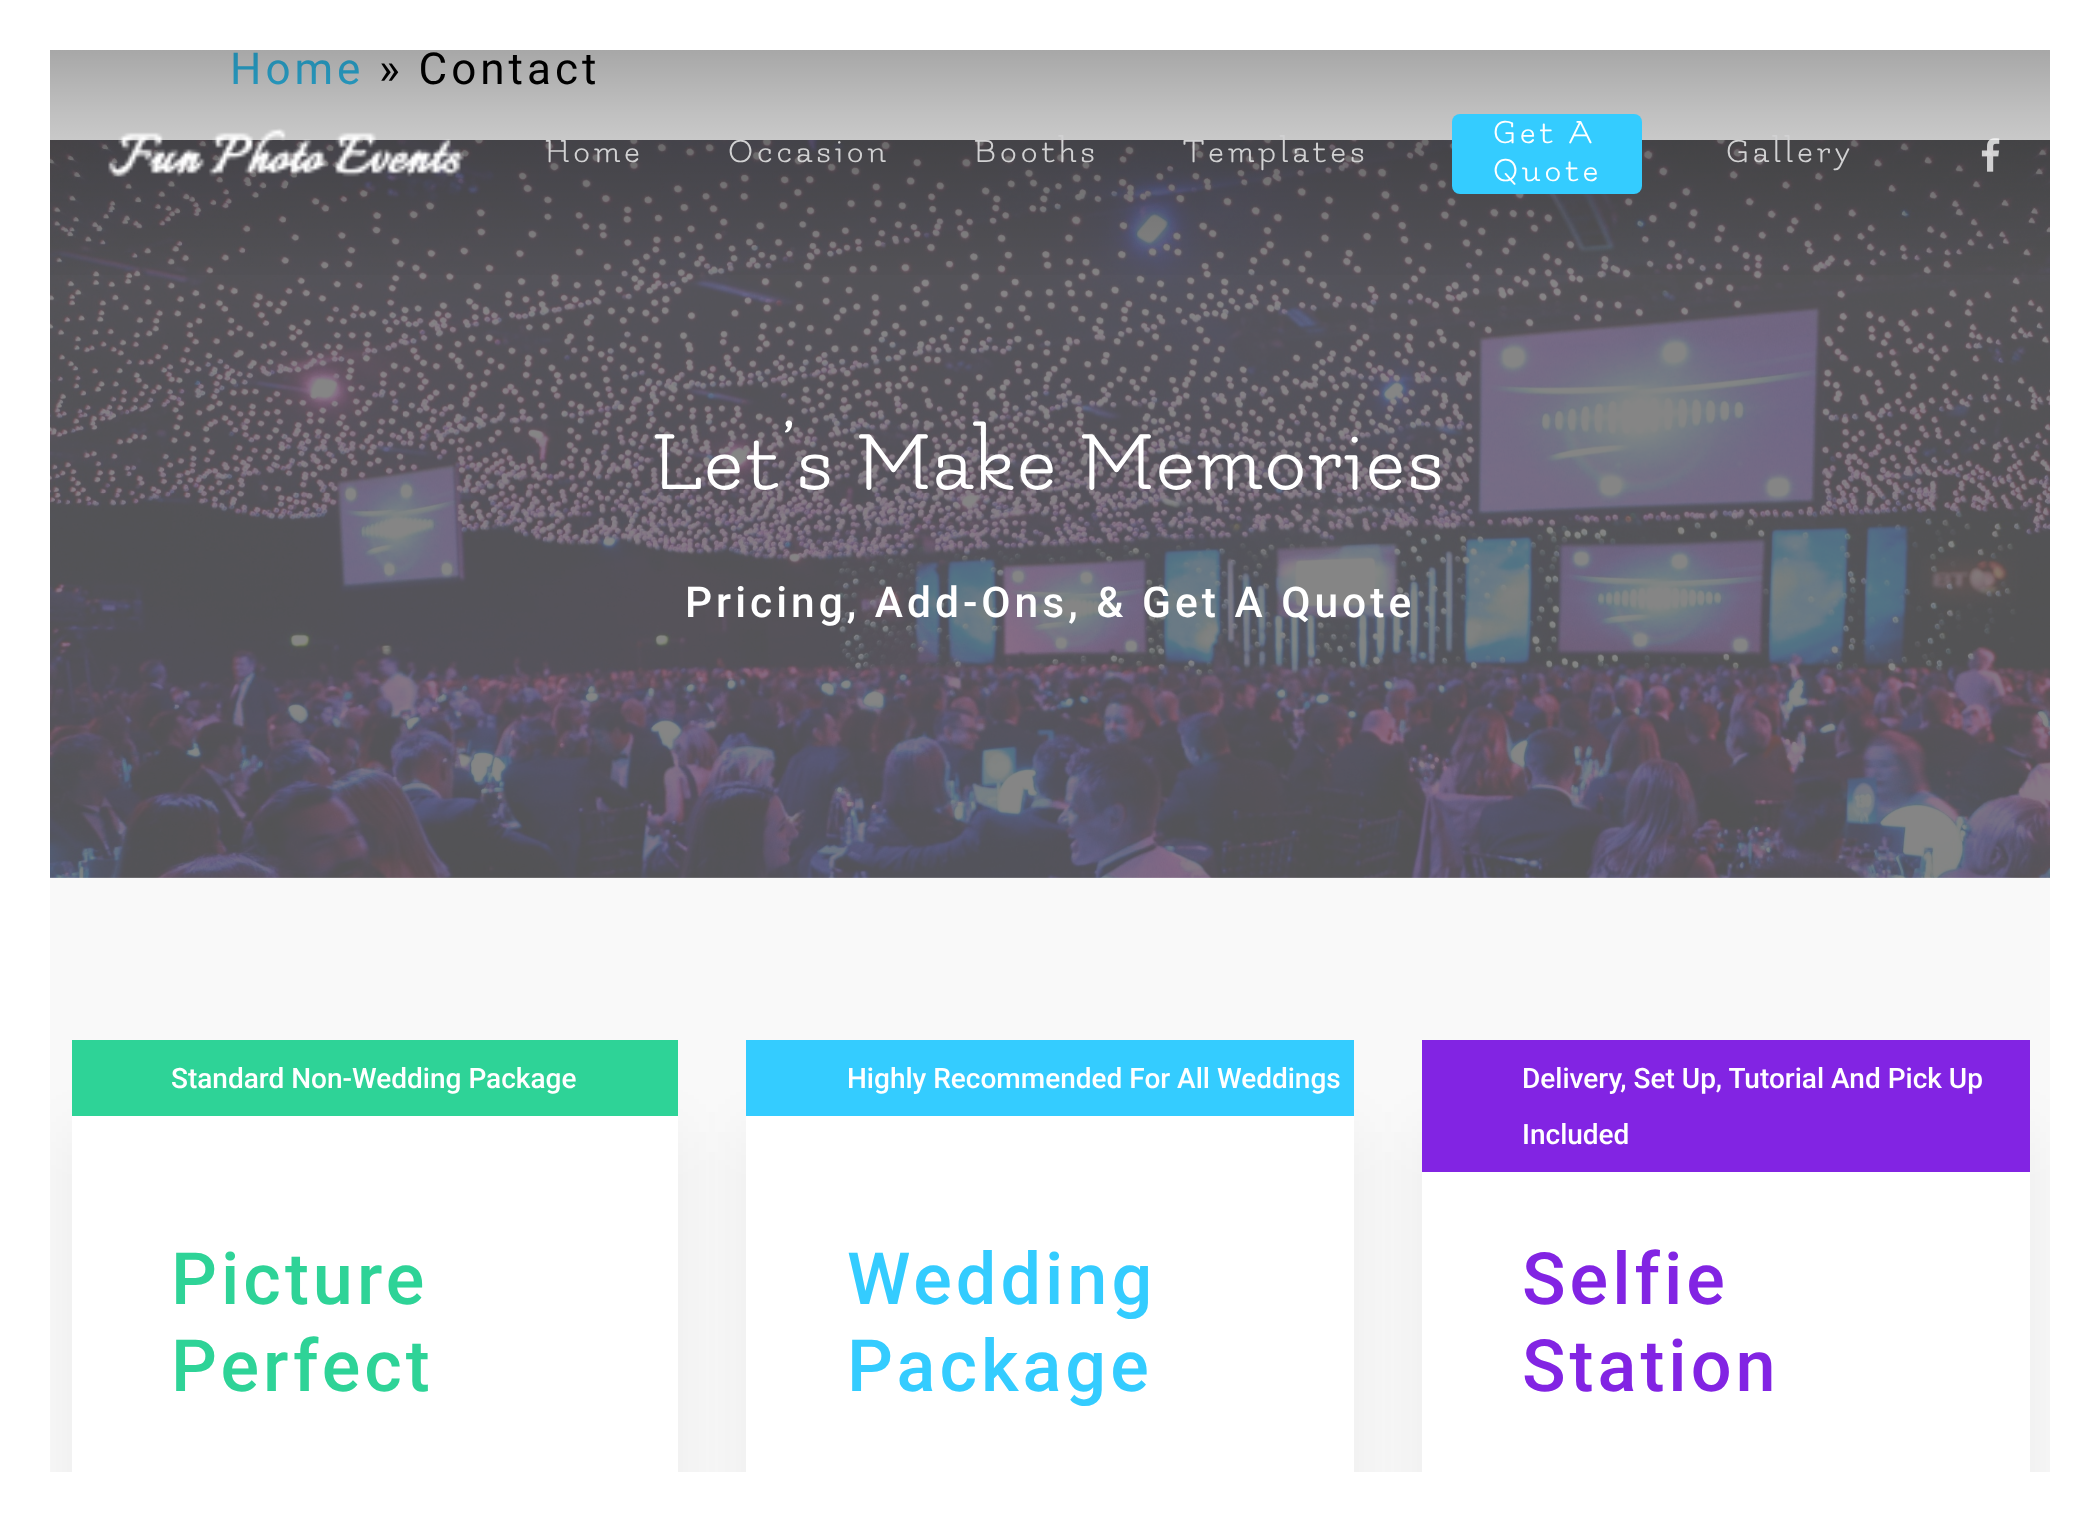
async function draw(canvas) {
  canvas.width = 2099;
  canvas.height = 1521;
  const ctx = canvas.getContext('2d');
  ctx.miterLimit = 4;
  ctx.fontKerning = 'normal';
  function label(s, x, y, font, color) {
    ctx.font = font;
    ctx.fillStyle = color;
    ctx.fillText(s, x, y);
  }
  function rect(x, y, w, h, color) {
    ctx.fillStyle = color;
    ctx.fillRect(x, y, w, h);
  }
  function roundedRect(x, y, w, h, r, color) {
    ctx.fillStyle = color;
    ctx.beginPath();
    ctx.roundRect(x, y, w, h, r);
    ctx.fill();
  }
  async function image(src, x, y, w, h) {
    const img = new Image();
    img.src = src;
    await img.decode();
    ctx.drawImage(img, x, y, w, h);
  }
  let gradient;

  rect(0, 0, 2099, 1521, '#f9f9f9');
  ctx.fillStyle = '#0000000f';
  ctx.filter = 'blur(30px)';
  ctx.beginPath();
  ctx.rect(72, 1132, 606, 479);
  ctx.fill();
  ctx.filter = 'none';
  rect(0, 0, 50, 1521, '#fff');
  rect(50, 0, 2000, 50, '#fff');
  rect(72, 1116, 606, 356, '#fff');
  rect(72, 1040, 606, 76, '#2ed397');
  ctx.fillStyle = '#0000000f';
  ctx.filter = 'blur(30px)';
  ctx.beginPath();
  ctx.rect(746, 1132, 608, 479);
  ctx.fill();
  ctx.filter = 'none';
  rect(746, 1116, 608, 356, '#fff');
  rect(746, 1040, 608, 76, '#34ccff');
  ctx.fillStyle = '#0000000f';
  ctx.filter = 'blur(30px)';
  ctx.beginPath();
  ctx.rect(1422, 1132, 608, 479);
  ctx.fill();
  ctx.filter = 'none';
  rect(2050, 0, 49, 1472, '#fff');
  ctx.letterSpacing = '4px';
  label('Home', 230, 84, '44px Roboto', '#34ccff');
  label('» Contact', 379, 84, '44px Roboto', '#000');
  await image('assets/img1.png', 50, 140, 2000, 738);
  ctx.letterSpacing = '2px';
  label('Let’s Make Memories', 653, 489, '90px Flamenco', '#fff');
  ctx.letterSpacing = '4px';
  label('Pricing, Add-Ons, & Get A Quote', 685, 617, '500 42.5px Roboto', '#fff');
  ctx.letterSpacing = '0px';
  label('Standard Non-Wedding Package', 171, 1088, '500 28px Roboto', '#fff');
  ctx.letterSpacing = '4px';
  label('Picture', 171, 1304, '500 72px Roboto', '#2ed397');
  label('Perfect', 171, 1391, '500 72px Roboto', '#2ed397');
  ctx.letterSpacing = '0px';
  label('Highly Recommended For All Weddings', 847, 1088, '500 28px Roboto', '#fff');
  ctx.letterSpacing = '4px';
  label('Wedding', 847, 1304, '500 72px Roboto', '#34ccff');
  label('Package', 847, 1391, '500 72px Roboto', '#34ccff');
  rect(1422, 1172, 608, 300, '#fff');
  rect(1422, 1040, 608, 132, '#8224e3');
  ctx.letterSpacing = '0px';
  label('Delivery, Set Up, Tutorial And Pick Up', 1522, 1088, '500 28px Roboto', '#fff');
  label('Included', 1522, 1144, '500 28px Roboto', '#fff');
  ctx.letterSpacing = '4px';
  label('Selfie', 1522, 1304, '500 72px Roboto', '#8224e3');
  label('Station', 1522, 1391, '500 72px Roboto', '#8224e3');
  gradient = ctx.createLinearGradient(1050, 298, 1050, 50);
  gradient.addColorStop(0, '#ffffff00');
  gradient.addColorStop(0.01, '#00000000');
  gradient.addColorStop(0.16, '#0000000a');
  gradient.addColorStop(0.75, '#0000003b');
  gradient.addColorStop(1, '#00000054');
  ctx.fillStyle = gradient;
  ctx.fillRect(50, 50, 2000, 225);
  await image('assets/img2.png', 108, 128, 356, 49);
  label('Home', 545, 162, '36px Flamenco', '#d1d1d2');
  label('Occasion', 728, 162, '36px Flamenco', '#d1d1d2');
  label('Booths', 974, 162, '36px Flamenco', '#d1d1d2');
  label('Templates', 1183, 162, '36px Flamenco', '#d1d1d2');
  roundedRect(1452, 114, 190, 80, 8, '#34ccff');
  label('Get A', 1493, 143, '36px Flamenco', '#fff');
  label('Quote', 1493, 181, '36px Flamenco', '#fff');
  label('Gallery', 1726, 162, '36px Flamenco', '#d1d1d2');
  await image('assets/img3.png', 1981, 138, 19, 34);
  rect(50, 1472, 2049, 49, '#fff');
}

draw(document.querySelector('canvas'));
